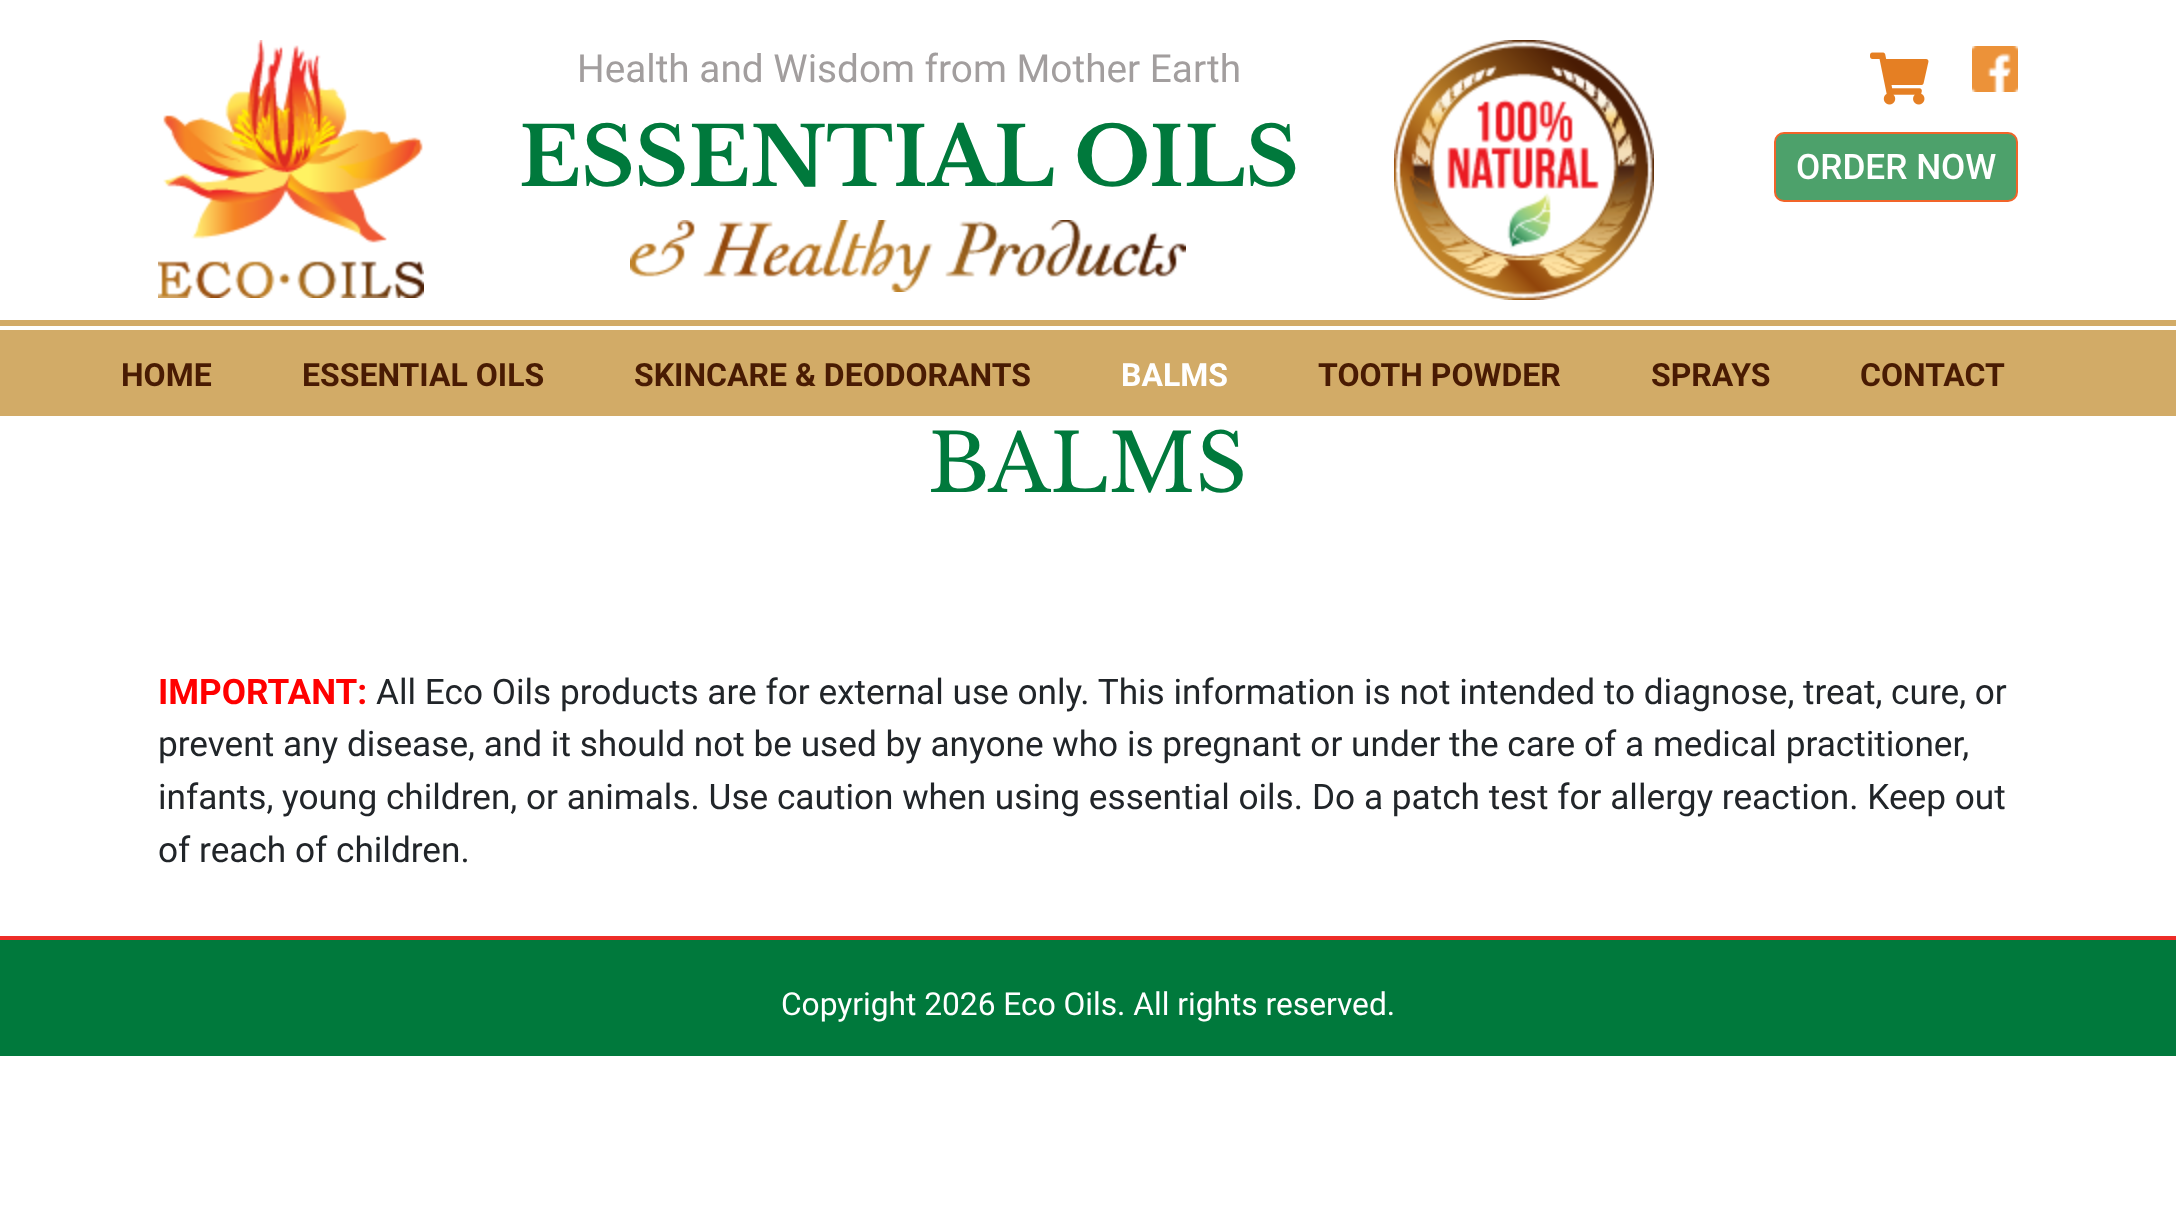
async function draw(canvas) {
  canvas.width = 2176;
  canvas.height = 1207;
  const ctx = canvas.getContext('2d');
  ctx.miterLimit = 4;
  ctx.fontKerning = 'normal';
  function label(s, x, y, font, color) {
    ctx.font = font;
    ctx.fillStyle = color;
    ctx.fillText(s, x, y);
  }
  function rect(x, y, w, h, color) {
    ctx.fillStyle = color;
    ctx.fillRect(x, y, w, h);
  }
  async function image(src, x, y, w, h) {
    const img = new Image();
    img.src = src;
    await img.decode();
    ctx.drawImage(img, x, y, w, h);
  }

  rect(0, 0, 2176, 1207, '#fff');
  await image('assets/img1.png', 158, 40, 266, 258);
  label('Health and Wisdom from Mother Earth', 577, 82, '38.75px Roboto', '#a29e9e');
  label('ESSENTIAL OILS', 519, 186, 'bold 81px Libre Baskerville', '#00793c');
  await image('assets/img2.png', 630, 220, 556, 72);
  await image('assets/img3.png', 1394, 40, 260, 260);
  await image('assets/img4.png', 1870, 52, 59, 53);
  await image('assets/img5.png', 1972, 46, 46, 46);
  ctx.fillStyle = '#4da16b';
  ctx.beginPath();
  ctx.roundRect(1775, 133, 242, 68, 9);
  ctx.fill();
  ctx.strokeStyle = '#f26429';
  ctx.lineWidth = 2;
  ctx.stroke();
  label('ORDER NOW', 1796, 179, '500 35.2px Roboto', '#fff');
  rect(0, 320, 2176, 6, '#d2ab67');
  rect(0, 330, 2176, 86, '#d2ab67');
  label('HOME', 121, 386, 'bold 32px Roboto', '#491b03');
  label('ESSENTIAL OILS', 302, 386, 'bold 32px Roboto', '#491b03');
  label('SKINCARE & DEODORANTS', 634, 386, 'bold 32px Roboto', '#491b03');
  label('BALMS', 1121, 386, 'bold 32px Roboto', '#fff');
  label('TOOTH POWDER', 1318, 386, 'bold 32px Roboto', '#491b03');
  label('SPRAYS', 1651, 386, 'bold 32px Roboto', '#491b03');
  label('CONTACT', 1860, 386, 'bold 32px Roboto', '#491b03');
  label('BALMS', 928, 492, '80px Libre Baskerville', '#00793c');
  label('IMPORTANT:', 158, 704, 'bold 35.2px Roboto', '#f00');
  label('All Eco Oils products are for external use only. This information is not intended to diagnose,', 376, 704, '35.2px Roboto', '#212529');
  label('treat, cure, or', 1803, 704, '35.2px Roboto', '#212529');
  label('prevent any disease, and it should not be used by anyone who is pregnant or under the care', 158, 756, '35.2px Roboto', '#212529');
  label('of a medical practitioner,', 1584, 756, '35.2px Roboto', '#212529');
  label('infants, young children, or animals. Use caution when using essential oils.', 158, 809, '35.2px Roboto', '#212529');
  label('Do a patch test for allergy reaction. Keep out', 1312, 809, '35.2px Roboto', '#212529');
  label('of reach of children.', 158, 862, '35.2px Roboto', '#212529');
  rect(0, 940, 2176, 116, '#00793c');
  rect(0, 936, 2176, 4, '#ed2d28');
  label('Copyright 2026 Eco Oils. All rights reserved.', 781, 1015, '31.7px Roboto', '#fff');
}

draw(document.querySelector('canvas'));
